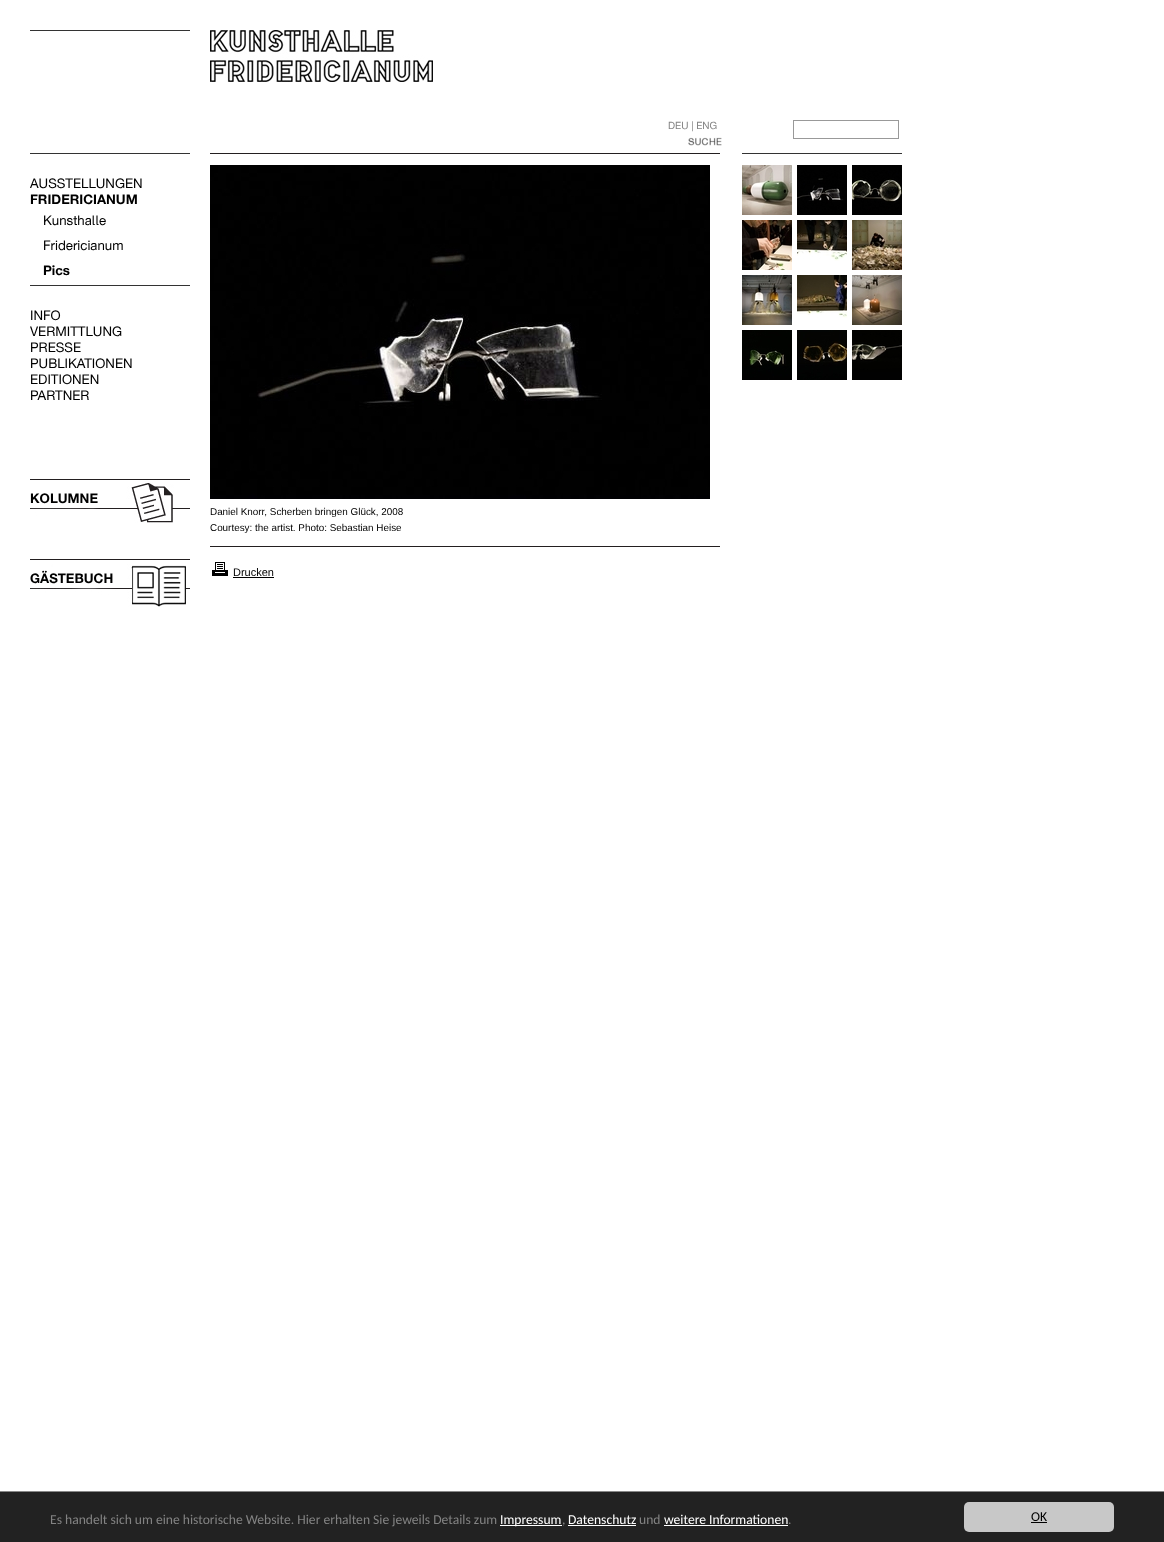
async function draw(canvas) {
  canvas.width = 1164;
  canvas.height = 1542;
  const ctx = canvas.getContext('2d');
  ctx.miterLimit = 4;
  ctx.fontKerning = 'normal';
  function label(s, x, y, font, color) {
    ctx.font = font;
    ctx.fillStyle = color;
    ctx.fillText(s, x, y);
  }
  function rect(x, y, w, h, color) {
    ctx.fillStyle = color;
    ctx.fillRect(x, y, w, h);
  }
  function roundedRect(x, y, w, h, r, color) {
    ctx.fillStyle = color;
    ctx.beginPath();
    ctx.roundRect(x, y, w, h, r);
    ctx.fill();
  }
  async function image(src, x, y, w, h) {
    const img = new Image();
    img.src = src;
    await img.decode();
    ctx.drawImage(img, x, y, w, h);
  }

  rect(0, 0, 1164, 1542, '#fff');
  rect(30, 30, 160, 1, '#333');
  await image('assets/img1.png', 210, 30, 223, 52);
  label('DEU | ENG', 668, 129, '10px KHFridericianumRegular', '#838383');
  await image('assets/img2.png', 688, 137, 34, 9);
  ctx.strokeStyle = '#999';
  ctx.strokeRect(793.5, 120.5, 105, 18);
  rect(30, 153, 160, 1, '#333');
  label('AUSSTELLUNGEN', 30, 188, '13.25px KHFridericianumRegular', '#000');
  label('FRIDERICIANUM', 30, 204, 'bold 13.25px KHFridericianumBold', '#000');
  label('Kunsthalle', 43, 225, '13.25px KHFridericianumRegular', '#000');
  label('Fridericianum', 43, 250, '13.25px KHFridericianumRegular', '#000');
  label('Pics', 43, 275, 'bold 13.25px KHFridericianumBold', '#000');
  rect(30, 285, 160, 1, '#333');
  label('INFO', 30, 320, '13.25px KHFridericianumRegular', '#000');
  label('VERMITTLUNG', 30, 336, '13.25px KHFridericianumRegular', '#000');
  label('PRESSE', 30, 352, '13.25px KHFridericianumRegular', '#000');
  label('PUBLIKATIONEN', 30, 368, '13.25px KHFridericianumRegular', '#000');
  label('EDITIONEN', 30, 384, '13.25px KHFridericianumRegular', '#000');
  label('PARTNER', 30, 400, '13.25px KHFridericianumRegular', '#000');
  await image('assets/img3.png', 30, 479, 160, 44);
  label('KOLUMNE', 30, 503, 'bold 13.25px KHFridericianumBold', '#000');
  await image('assets/img4.png', 30, 559, 160, 48);
  label('GÄSTEBUCH', 30, 583, 'bold 13.25px KHFridericianumBold', '#000');
  rect(742, 153, 160, 1, '#333');
  await image('assets/img5.png', 742, 165, 50, 50);
  await image('assets/img6.png', 797, 165, 50, 50);
  await image('assets/img7.png', 852, 165, 50, 50);
  await image('assets/img8.png', 742, 220, 50, 50);
  await image('assets/img9.png', 797, 220, 50, 41);
  await image('assets/img10.png', 852, 220, 50, 50);
  await image('assets/img11.png', 742, 275, 50, 50);
  await image('assets/img12.png', 797, 275, 50, 43);
  await image('assets/img13.png', 852, 275, 50, 50);
  await image('assets/img14.png', 742, 330, 50, 50);
  await image('assets/img15.png', 797, 330, 50, 50);
  await image('assets/img16.png', 852, 330, 50, 50);
  rect(210, 153, 510, 1, '#231f20');
  await image('assets/img17.png', 210, 165, 500, 334);
  label('Daniel Knorr, Scherben bringen Glück, 2008', 210, 515, '9.9px Liberation Sans', '#000');
  label('Courtesy: the artist. Photo: Sebastian Heise', 210, 531, '9.9px Liberation Sans', '#000');
  rect(210, 546, 510, 1, '#231f20');
  await image('assets/img18.png', 212, 562, 16, 14);
  label('Drucken', 233, 576, '11px Liberation Sans', '#000');
  rect(233, 577, 41, 1, '#000');
  rect(0, 1492, 1164, 50, '#222');
  rect(0, 1491, 1164, 1, '#888');
  label('Es handelt sich um eine historische Website. Hier erhalten Sie jeweils Details zum', 50, 1524, '13.6px Carlito', '#838383');
  rect(500, 1525, 62, 1, '#fff');
  label('Impressum', 500, 1524, '13.6px Carlito', '#fff');
  label(',', 562, 1524, '13.6px Carlito', '#838383');
  label('Datenschutz', 568, 1524, '13.6px Carlito', '#fff');
  rect(568, 1525, 68, 1, '#fff');
  label('und', 639, 1524, '13.6px Carlito', '#838383');
  label('weitere Informationen', 664, 1524, '13.6px Carlito', '#fff');
  rect(664, 1525, 124, 1, '#fff');
  label('.', 788, 1524, '13.6px Carlito', '#838383');
  roundedRect(964, 1502, 150, 30, 5, '#c8c8c8');
  label('OK', 1031, 1521, '13.6px Carlito', '#000');
  rect(1031, 1522, 16, 1, '#000');
}

draw(document.querySelector('canvas'));
